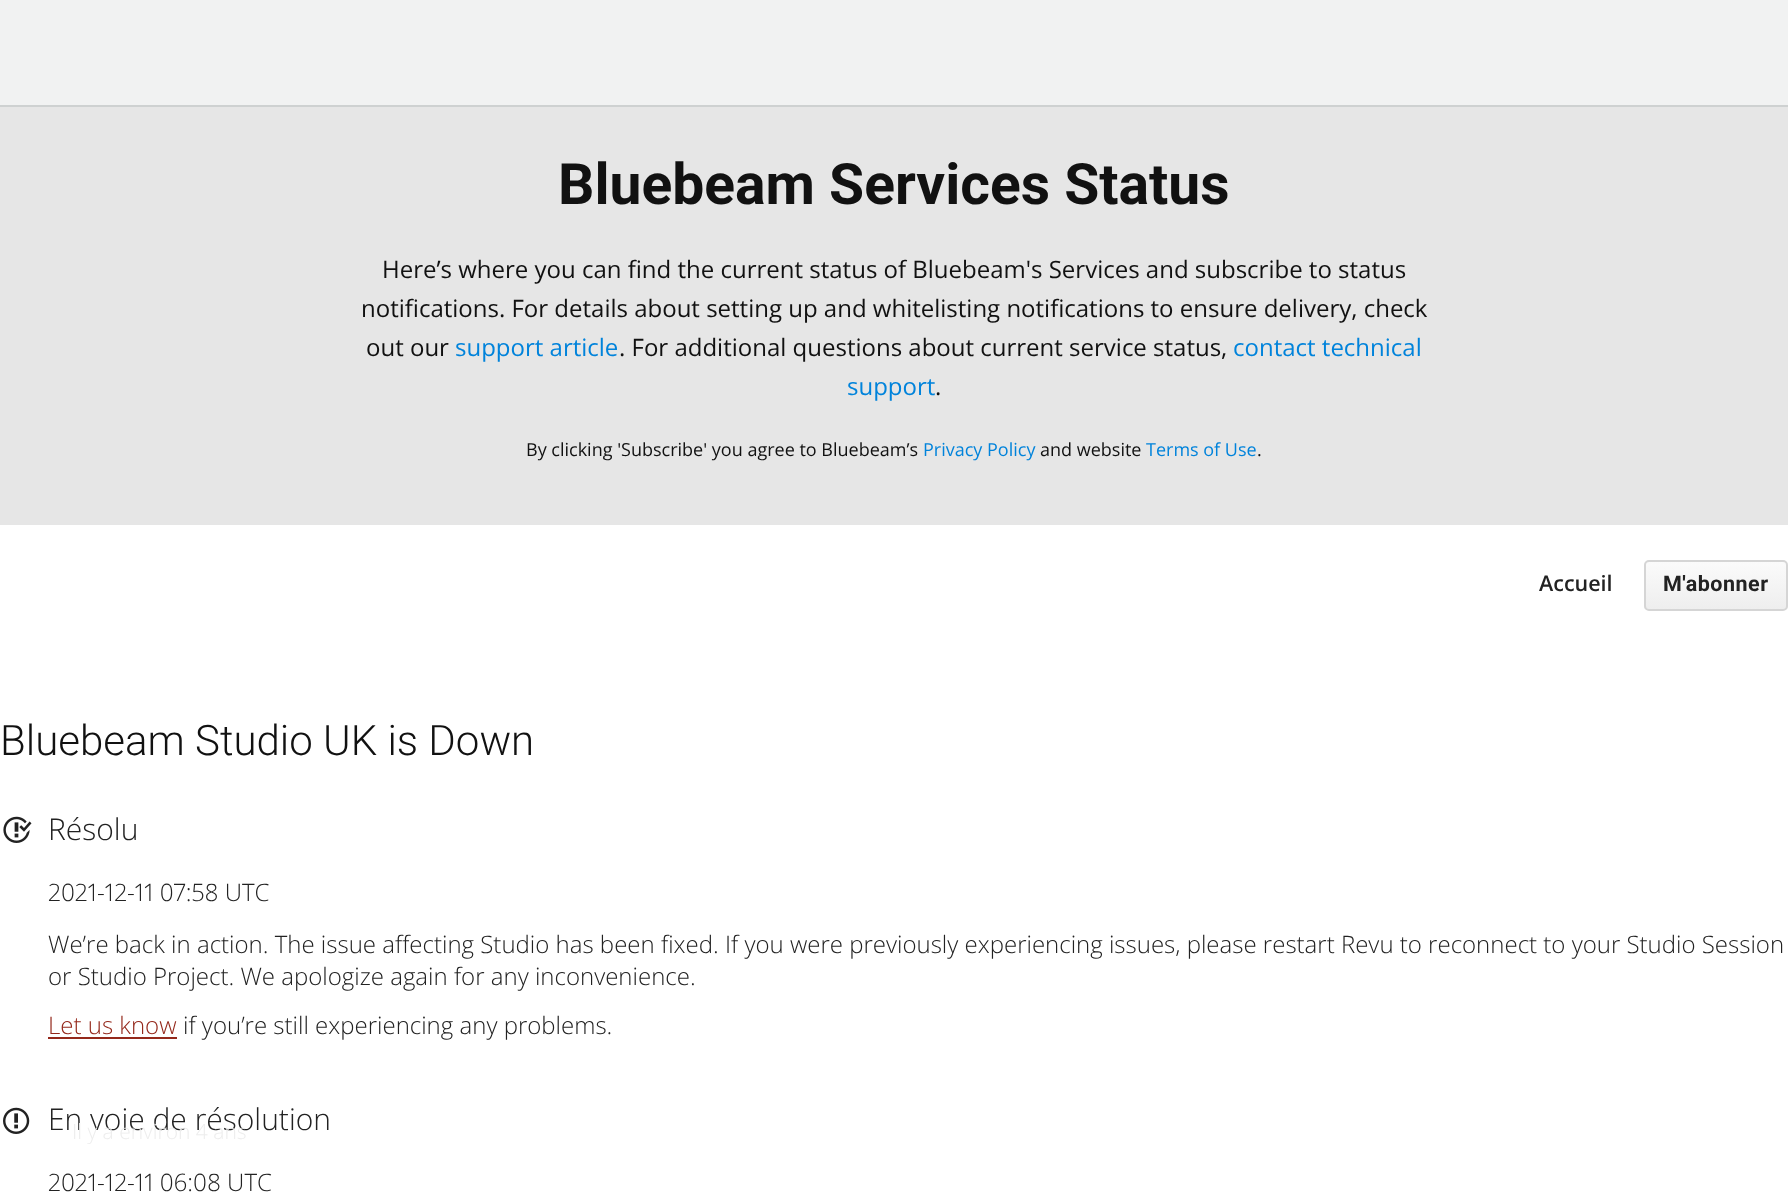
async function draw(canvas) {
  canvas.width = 1788;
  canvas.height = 1192;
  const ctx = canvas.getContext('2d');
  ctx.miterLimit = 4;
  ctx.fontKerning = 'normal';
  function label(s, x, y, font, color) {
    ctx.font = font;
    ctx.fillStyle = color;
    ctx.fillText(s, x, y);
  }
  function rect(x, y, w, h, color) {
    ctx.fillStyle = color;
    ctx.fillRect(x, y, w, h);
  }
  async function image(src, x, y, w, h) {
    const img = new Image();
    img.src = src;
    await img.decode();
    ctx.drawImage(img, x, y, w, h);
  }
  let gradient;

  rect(0, 0, 1788, 1192, '#fff');
  rect(0, 105, 1788, 2, '#ced1d1');
  rect(0, 0, 1788, 105, '#f1f2f2');
  rect(0, 107, 1788, 418, '#e6e6e6');
  label('Bluebeam Services Status', 558, 204, 'bold 57px Roboto', '#111');
  label('Here’s where you can find the current status of Bluebeam\'s Services and subscribe to status', 382, 278, '24px Open Sans', '#111');
  label('notifications. For details about setting up and whitelisting notifications to ensure delivery, check', 361, 317, '24px Open Sans', '#111');
  label('out our', 366, 356, '24px Open Sans', '#111');
  label('support article', 455, 356, '24px Open Sans', '#0083db');
  label('. For additional questions about current service status,', 619, 356, '24px Open Sans', '#111');
  label('contact technical', 1233, 356, '24px Open Sans', '#0083db');
  label('support', 847, 395, '24px Open Sans', '#0083db');
  label('.', 935, 395, '24px Open Sans', '#111');
  label('By clicking \'Subscribe\' you agree to Bluebeam’s', 526, 456, '18px Open Sans', '#111');
  label('Privacy Policy', 923, 456, '18px Open Sans', '#0083db');
  label('and website', 1040, 456, '18px Open Sans', '#111');
  label('Terms of Use', 1146, 456, '18px Open Sans', '#0083db');
  label('.', 1257, 456, '18px Open Sans', '#111');
  label('Accueil', 1539, 591, '600 21.5px Open Sans', '#222');
  ctx.save();
  ctx.beginPath();
  ctx.roundRect(1644, 560, 144, 51, 5);
  ctx.clip();
  gradient = ctx.createLinearGradient(1716, 561, 1716, 609);
  gradient.addColorStop(0, '#fbfbfb');
  gradient.addColorStop(1, '#eee');
  ctx.fillStyle = gradient;
  ctx.fillRect(1644, 561, 144, 48);
  ctx.restore();
  ctx.beginPath();
  ctx.roundRect(1645, 561, 142, 49, 4);
  ctx.strokeStyle = '#d5d5d5';
  ctx.lineWidth = 2;
  ctx.stroke();
  ctx.letterSpacing = '0.5px';
  label('M\'abonner', 1663, 591, 'bold 21.5px Roboto', '#222');
  ctx.letterSpacing = '0px';
  label('Bluebeam Studio UK is Down', 0, 755, '300 42px Roboto', '#111');
  await image('assets/img1.png', 3, 816, 29, 27);
  label('Résolu', 48, 840, '300 30px Open Sans', '#222');
  label('2021-12-11 07:58 UTC', 48, 901, '300 24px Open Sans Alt', '#222');
  label('We’re back in action. The issue affecting Studio has been fixed. If you were previously experiencing issues, please restart Revu to reconnect to your Studio Session', 48, 953, '300 24px Open Sans', '#222');
  label('or Studio Project. We apologize again for any inconvenience.', 48, 985, '300 24px Open Sans', '#222');
  label('Let us know', 48, 1034, '300 24px Open Sans', '#94281b');
  rect(48, 1037, 129, 2, '#94281b');
  label('if you’re still experiencing any problems.', 183, 1034, '300 24px Open Sans', '#222');
  await image('assets/img2.png', 3, 1107, 27, 27);
  label('En voie de résolution', 48, 1130, '300 30px Open Sans', '#222');
  label('Il y a environ 4 ans', 72, 1139, '300 21px Open Sans', '#ededed');
  label('2021-12-11 06:08 UTC', 48, 1191, '300 24px Open Sans Alt', '#222');
}

draw(document.querySelector('canvas'));
